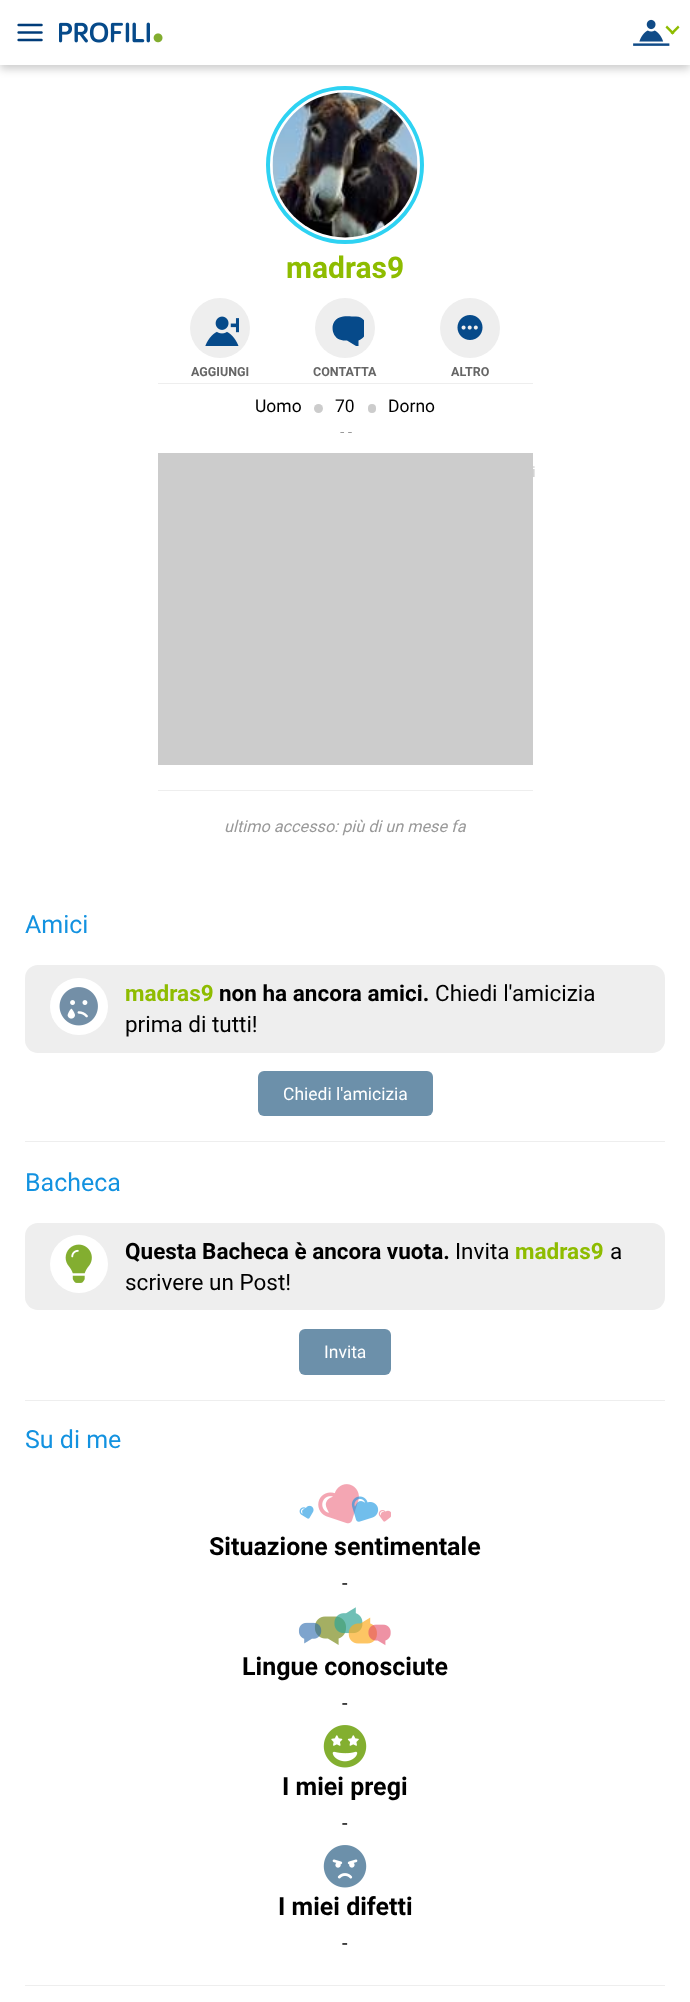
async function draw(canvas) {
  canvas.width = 690;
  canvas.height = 2002;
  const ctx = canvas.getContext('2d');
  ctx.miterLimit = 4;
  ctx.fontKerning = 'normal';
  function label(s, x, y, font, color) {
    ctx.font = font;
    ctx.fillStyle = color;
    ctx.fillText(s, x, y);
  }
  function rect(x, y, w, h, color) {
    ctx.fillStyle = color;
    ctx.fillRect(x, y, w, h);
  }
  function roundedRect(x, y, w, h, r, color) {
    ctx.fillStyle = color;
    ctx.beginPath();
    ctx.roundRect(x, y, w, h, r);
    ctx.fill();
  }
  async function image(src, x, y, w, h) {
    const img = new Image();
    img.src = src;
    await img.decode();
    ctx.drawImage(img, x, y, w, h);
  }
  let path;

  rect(0, 0, 690, 2002, '#fff');
  ctx.fillStyle = '#00000033';
  ctx.filter = 'blur(4px)';
  ctx.beginPath();
  ctx.rect(0, 4, 690, 65);
  ctx.fill();
  ctx.filter = 'none';
  rect(0, 0, 690, 65, '#fff');
  await image('assets/img1.png', 17, 23, 26, 19);
  await image('assets/img2.png', 59, 22, 104, 21);
  await image('assets/img3.png', 633, 19, 37, 27);
  ctx.fillStyle = '#8ebc00';
  path = new Path2D('M678 25.5L679.5 27.5L672.5 34.5L670.5 33Z');
  ctx.fill(path);
  path = new Path2D('M667 25.5L674.5 33L672.5 34.5L665.5 27.5Z');
  ctx.fill(path);
  ctx.beginPath();
  ctx.arc(345, 165, 76, 0, 2 * Math.PI);
  ctx.strokeStyle = '#2ed2f2';
  ctx.lineWidth = 6;
  ctx.stroke();
  ctx.beginPath();
  ctx.arc(345, 165, 73.5, 0, 2 * Math.PI);
  ctx.strokeStyle = '#fff';
  ctx.lineWidth = 3;
  ctx.stroke();
  await image('assets/img4.png', 272, 92, 146, 146);
  label('madras9', 286, 278, 'bold 30px Roboto', '#8ebc00');
  ctx.fillStyle = '#eee';
  ctx.beginPath();
  ctx.arc(220, 328, 30, 0, 2 * Math.PI);
  ctx.fill();
  await image('assets/img5.png', 205, 316, 34, 30);
  label('AGGIUNGI', 191, 376, 'bold 12.5px Roboto', '#666');
  ctx.fillStyle = '#eee';
  ctx.beginPath();
  ctx.arc(345, 328, 30, 0, 2 * Math.PI);
  ctx.fill();
  ctx.save();
  ctx.beginPath();
  ctx.rect(326, 309, 38, 37);
  ctx.clip();
  ctx.fillStyle = '#064a8a';
  path = new Path2D('M355.5 316.5C351 316.5 343.5 315.5 339.5 317.5C330 321 330.5 335.5 339.5 339.5C342 340.5 344.5 340.5 347 340.5L358.5 347.5V340.5C370.5 336.5 369 316 355.5 316.5Z');
  ctx.fill(path);
  ctx.restore();
  label('CONTATTA', 313, 376, 'bold 12.5px Roboto', '#666');
  ctx.fillStyle = '#eee';
  ctx.beginPath();
  ctx.arc(470, 328, 30, 0, 2 * Math.PI);
  ctx.fill();
  await image('assets/img6.png', 457, 315, 26, 25);
  label('ALTRO', 451, 376, 'bold 12.5px Roboto', '#666');
  rect(158, 453, 375, 312, '#ccc');
  label('i', 532, 477, '15px Roboto', '#cdcdcd');
  rect(158, 383, 375, 1, '#eee');
  label('Uomo', 255, 412, '17.5px Roboto', '#000');
  ctx.fillStyle = '#ccc';
  ctx.beginPath();
  ctx.arc(318.5, 408.5, 4.5, 0, 2 * Math.PI);
  ctx.fill();
  label('70', 335, 412, '17.5px Roboto', '#000');
  roundedRect(368, 404, 8, 9, 4, '#ccc');
  label('Dorno', 388, 412, '17.5px Roboto', '#000');
  label('- -', 339, 437, 'italic 15px Roboto', '#999');
  rect(158, 790, 375, 1, '#eee');
  label('ultimo accesso: più di un mese fa', 224, 832, 'italic 16.25px Roboto', '#999');
  rect(25, 1141, 640, 1, '#eee');
  label('Amici', 25, 933, '25px Roboto', '#1392e0');
  roundedRect(25, 965, 640, 88, 13, '#eee');
  roundedRect(50, 978, 58, 57, 28.5, '#fff');
  await image('assets/img7.png', 59, 987, 39, 39);
  label('madras9', 125, 1001, 'bold 22.5px Roboto', '#8ebc00');
  label('non ha ancora amici.', 219, 1001, 'bold 22.5px Roboto', '#000');
  label('Chiedi l\'amicizia', 435, 1001, '22.5px Roboto', '#000');
  label('prima di tutti!', 125, 1032, '22.5px Roboto', '#000');
  roundedRect(258, 1071, 175, 45, 6, '#6c90aa');
  label('Chiedi l\'amicizia', 283, 1100, '17.5px Roboto', '#fff');
  rect(25, 1400, 640, 1, '#eee');
  label('Bacheca', 25, 1191, '25px Roboto', '#1392e0');
  roundedRect(25, 1223, 640, 87, 13, '#eee');
  ctx.fillStyle = '#fff';
  ctx.beginPath();
  ctx.arc(79, 1264, 29, 0, 2 * Math.PI);
  ctx.fill();
  await image('assets/img8.png', 65, 1244, 27, 39);
  label('Questa Bacheca è ancora vuota.', 125, 1259, 'bold 22.5px Roboto', '#000');
  label('Invita', 455, 1259, '22.5px Roboto', '#000');
  label('madras9', 515, 1259, 'bold 22.5px Roboto', '#8ebc00');
  label('a', 610, 1259, '22.5px Roboto', '#000');
  label('scrivere un Post!', 125, 1290, '22.5px Roboto', '#000');
  roundedRect(299, 1329, 92, 46, 6, '#6c90aa');
  label('Invita', 324, 1358, '17.5px Roboto', '#fff');
  rect(25, 1985, 640, 1, '#eee');
  label('Su di me', 25, 1448, '25px Roboto', '#1392e0');
  await image('assets/img9.png', 299, 1484, 92, 40);
  label('Situazione sentimentale', 209, 1555, 'bold 25px Roboto', '#000');
  label('-', 342, 1590, '20px Roboto', '#000');
  await image('assets/img10.png', 298, 1607, 93, 39);
  label('Lingue conosciute', 242, 1675, 'bold 25px Roboto', '#000');
  label('-', 342, 1710, '20px Roboto', '#000');
  await image('assets/img11.png', 323, 1725, 44, 43);
  label('I miei pregi', 282, 1795, 'bold 25px Roboto', '#000');
  label('-', 342, 1830, '20px Roboto', '#000');
  await image('assets/img12.png', 323, 1845, 44, 43);
  label('I miei difetti', 278, 1915, 'bold 25px Roboto', '#000');
  label('-', 342, 1950, '20px Roboto', '#000');
}

draw(document.querySelector('canvas'));
